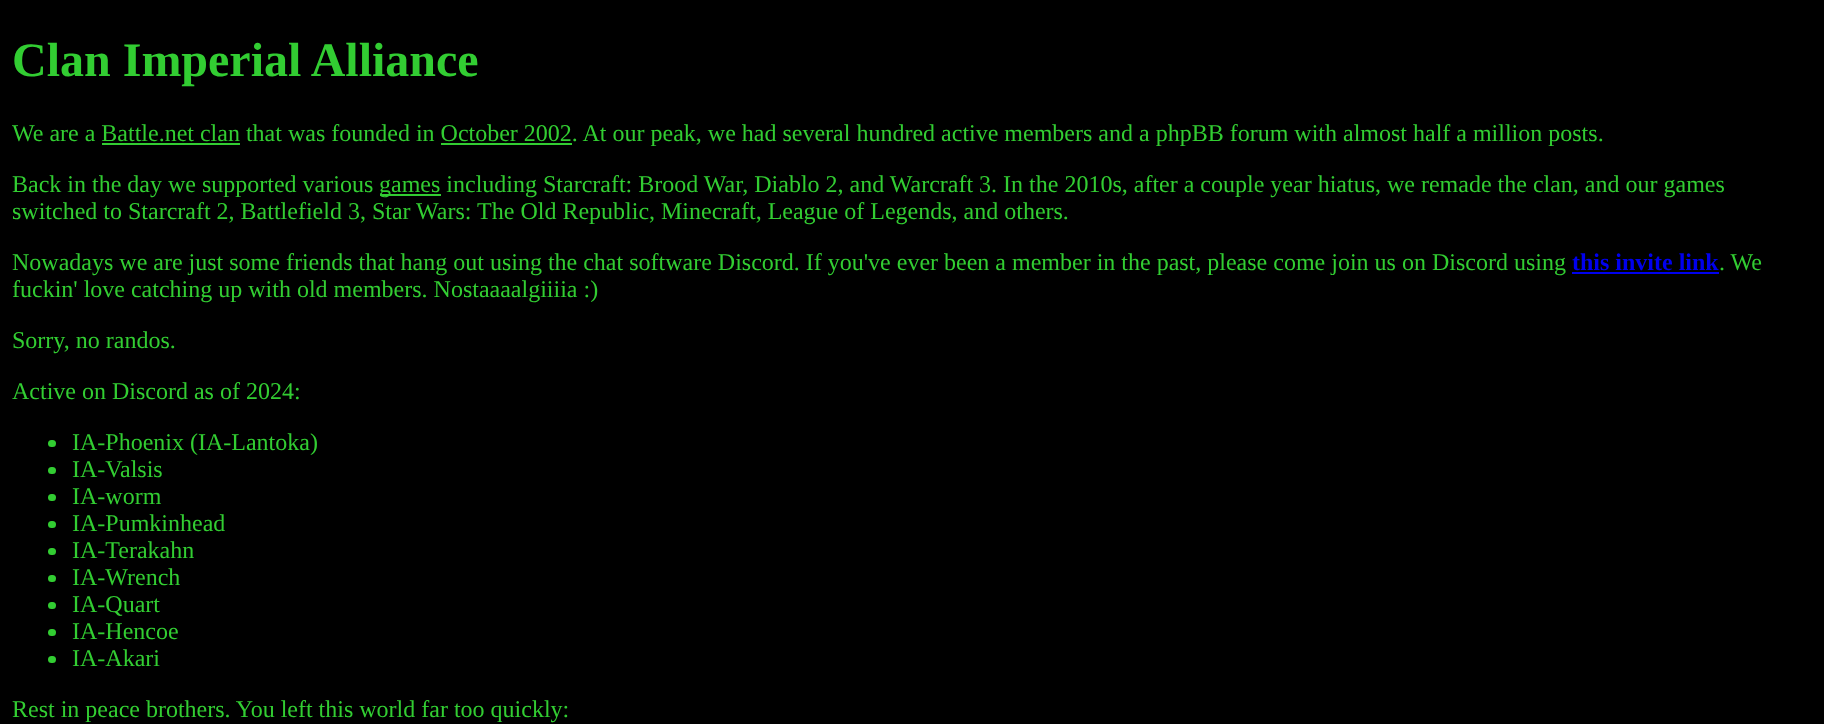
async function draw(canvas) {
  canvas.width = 1824;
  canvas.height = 724;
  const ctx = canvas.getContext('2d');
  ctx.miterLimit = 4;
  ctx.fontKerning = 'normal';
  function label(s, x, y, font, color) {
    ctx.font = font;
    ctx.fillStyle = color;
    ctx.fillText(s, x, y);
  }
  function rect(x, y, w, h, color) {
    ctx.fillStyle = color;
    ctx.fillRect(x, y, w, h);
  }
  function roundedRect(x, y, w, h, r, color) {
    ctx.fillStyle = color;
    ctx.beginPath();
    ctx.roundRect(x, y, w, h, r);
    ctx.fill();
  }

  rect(0, 0, 1824, 724, '#000');
  label('Clan Imperial Alliance', 12, 76, 'bold 48px Liberation Serif', '#32cd32');
  label('We are a Battle.net clan that was founded in October 2002. At our peak, we had several hundred active members and a phpBB forum with almost half a million posts.', 12, 141, '24px Liberation Serif', '#32cd32');
  rect(102, 143, 138, 2, '#32cd32');
  rect(441, 143, 131, 2, '#32cd32');
  label('Back in the day we supported various', 12, 192, '24px Liberation Serif', '#32cd32');
  rect(380, 194, 61, 2, '#32cd32');
  label('games including Starcraft: Brood War, Diablo 2, and Warcraft 3. In the 2010s, after a couple year hiatus, we remade the clan, and our games', 379, 192, '24px Liberation Serif', '#32cd32');
  label('switched to Starcraft 2, Battlefield 3, Star Wars: The Old Republic, Minecraft, League of Legends, and others.', 12, 219, '24px Liberation Serif', '#32cd32');
  label('Nowadays we are just some friends that hang out using the chat software Discord. If you\'ve ever been a member in the past, please come join us on Discord using', 12, 270, '24px Liberation Serif', '#32cd32');
  label('this invite link', 1572, 270, 'bold 24px Liberation Serif', '#00e');
  rect(1572, 272, 147, 2, '#00e');
  label('. We', 1719, 270, '24px Liberation Serif', '#32cd32');
  label('fuckin\' love catching up with old members. Nostaaaalgiiiia :)', 12, 297, '24px Liberation Serif', '#32cd32');
  label('Sorry, no randos.', 12, 348, '24px Liberation Serif', '#32cd32');
  label('Active on Discord as of 2024:', 12, 399, '24px Liberation Serif', '#32cd32');
  roundedRect(48, 440, 8, 7, 3.5, '#32cd32');
  label('IA-Phoenix (IA-Lantoka)', 72, 450, '24px Liberation Serif', '#32cd32');
  roundedRect(48, 467, 8, 7, 3.5, '#32cd32');
  label('IA-Valsis', 72, 477, '24px Liberation Serif', '#32cd32');
  roundedRect(48, 494, 8, 7, 3.5, '#32cd32');
  label('IA-worm', 72, 504, '24px Liberation Serif', '#32cd32');
  roundedRect(48, 521, 8, 7, 3.5, '#32cd32');
  label('IA-Pumkinhead', 72, 531, '24px Liberation Serif', '#32cd32');
  roundedRect(48, 548, 8, 7, 3.5, '#32cd32');
  label('IA-Terakahn', 72, 558, '24px Liberation Serif', '#32cd32');
  roundedRect(48, 575, 8, 7, 3.5, '#32cd32');
  label('IA-Wrench', 72, 585, '24px Liberation Serif', '#32cd32');
  roundedRect(48, 602, 8, 7, 3.5, '#32cd32');
  label('IA-Quart', 72, 612, '24px Liberation Serif', '#32cd32');
  roundedRect(48, 629, 8, 7, 3.5, '#32cd32');
  label('IA-Hencoe', 72, 639, '24px Liberation Serif', '#32cd32');
  roundedRect(48, 656, 8, 7, 3.5, '#32cd32');
  label('IA-Akari', 72, 666, '24px Liberation Serif', '#32cd32');
  label('Rest in peace brothers. You left this world far too quickly:', 12, 717, '24px Liberation Serif', '#32cd32');
}

draw(document.querySelector('canvas'));
